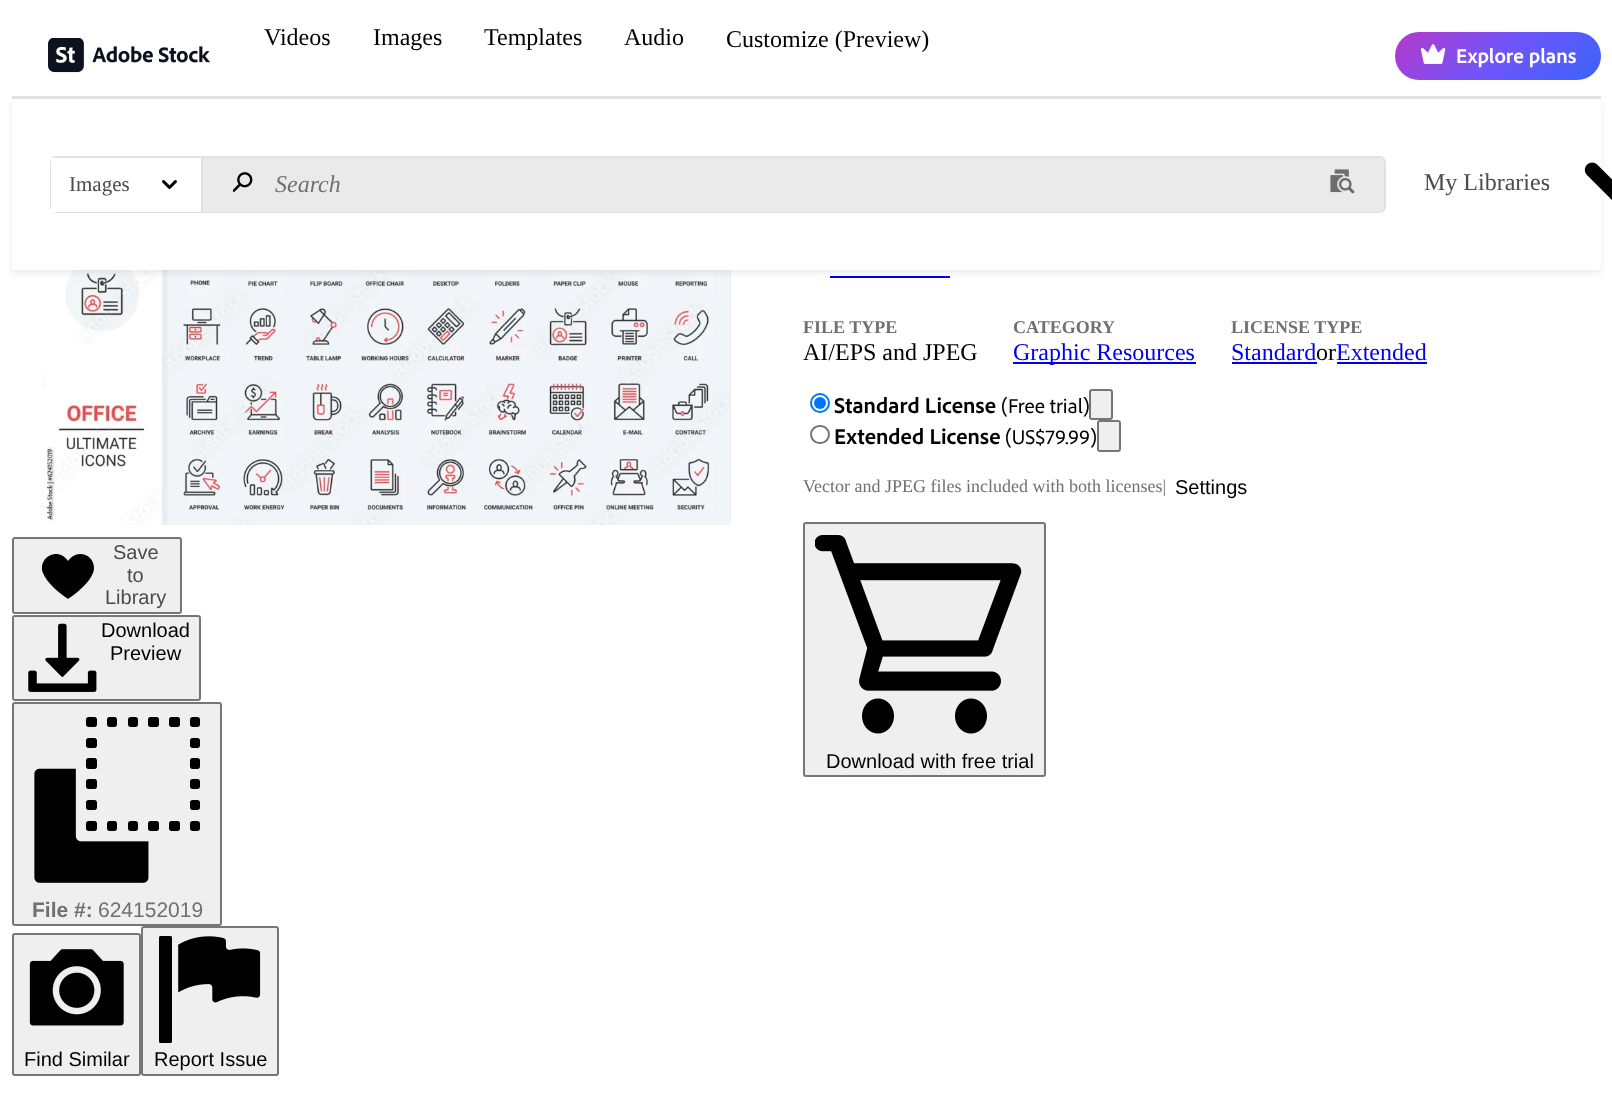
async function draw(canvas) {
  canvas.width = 1612;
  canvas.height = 1099;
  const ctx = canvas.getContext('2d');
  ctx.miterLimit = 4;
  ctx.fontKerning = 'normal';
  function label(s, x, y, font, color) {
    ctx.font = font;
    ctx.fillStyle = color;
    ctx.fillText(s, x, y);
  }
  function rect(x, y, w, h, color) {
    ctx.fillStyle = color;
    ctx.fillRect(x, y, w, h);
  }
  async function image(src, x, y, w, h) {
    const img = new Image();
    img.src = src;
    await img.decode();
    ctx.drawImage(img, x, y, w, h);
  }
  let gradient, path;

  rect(0, 0, 1612, 1099, '#fff');
  rect(42, 270, 689, 255, '#eaeaea');
  await image('assets/img7.png', 42, 270, 689, 255);
  rect(830, 276, 120, 2, '#00e');
  ctx.fillStyle = '#3434341a';
  ctx.filter = 'blur(3px)';
  ctx.beginPath();
  ctx.rect(12, 102, 1589, 171);
  ctx.fill();
  ctx.filter = 'none';
  rect(12, 96, 1589, 3, '#e1e1e1');
  await image('assets/img1.png', 48, 38, 162, 35);
  label('Videos', 264, 45, '24px Liberation Serif', '#000');
  label('Images', 373, 45, '24px Liberation Serif', '#000');
  label('Templates', 484, 45, '24px Liberation Serif', '#000');
  label('Audio', 624, 45, '24px Liberation Serif', '#000');
  label('Customize (Preview)', 726, 47, '24px Liberation Serif', '#000');
  gradient = ctx.createLinearGradient(1434, -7.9, 1561, 119);
  gradient.addColorStop(0, '#b539c8');
  gradient.addColorStop(0.5, '#7155fa');
  gradient.addColorStop(1, '#3b63fb');
  ctx.fillStyle = gradient;
  ctx.beginPath();
  ctx.roundRect(1395, 32, 206, 48, 24);
  ctx.fill();
  await image('assets/img2.png', 1420, 44, 26, 20);
  label('Explore plans', 1456, 63, 'bold 21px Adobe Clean', '#fff');
  rect(12, 99, 1589, 171, '#fff');
  ctx.beginPath();
  ctx.roundRect(51, 157, 151, 55, [5, 0, 0, 5]);
  ctx.strokeStyle = '#e1e1e1';
  ctx.lineWidth = 2;
  ctx.stroke();
  rect(51, 158, 150, 54, '#fff');
  label('Images', 69, 191, '21px Liberation Serif', '#4b4b4b');
  await image('assets/img3.png', 162, 180, 15, 9);
  ctx.fillStyle = '#eaeaea';
  ctx.beginPath();
  ctx.roundRect(203, 158, 1182, 54, [0, 5, 5, 0]);
  ctx.fill();
  ctx.fillStyle = '#e1e1e1';
  path = new Path2D('M202 156H1380C1383 156 1386 159 1386 162V207C1386 210 1383 213 1380 213H202ZM202 158H1380C1382 158 1384 160 1384 162V207C1384 209 1382 212 1380 212H202Z');
  ctx.fill(path, 'evenodd');
  await image('assets/img4.png', 233, 172, 20, 20);
  label('Search', 275, 192, 'italic 24px Liberation Serif', '#707070');
  await image('assets/img5.png', 1330, 169, 25, 25);
  label('My Libraries', 1424, 190, '24px Liberation Serif', '#4b4b4b');
  await image('assets/img6.png', 1584, 162, 28, 38);
  ctx.fillStyle = '#efefef';
  ctx.beginPath();
  ctx.roundRect(13, 538, 168, 75, 2);
  ctx.fill();
  ctx.strokeStyle = '#767676';
  ctx.stroke();
  ctx.fillStyle = '#000';
  path = new Path2D('M80 554C75 554 71 557 68 561C59 546 37 557 43 573C47 583 59 593 68 599C68 599 94 582 94 568C94 560 88 554 80 554Z');
  ctx.fill(path, 'evenodd');
  label('Save', 113, 559, '20px Liberation Sans', '#4b4b4b');
  label('to', 127, 582, '20px Liberation Sans', '#4b4b4b');
  label('Library', 105, 604, '20px Liberation Sans', '#4b4b4b');
  ctx.fillStyle = '#efefef';
  ctx.beginPath();
  ctx.roundRect(13, 616, 187, 84, 2);
  ctx.fill();
  ctx.stroke();
  await image('assets/img8.png', 28, 623, 69, 69);
  label('Download', 101, 637, '20px Liberation Sans', '#000');
  label('Preview', 110, 660, '20px Liberation Sans', '#000');
  ctx.fillStyle = '#efefef';
  ctx.beginPath();
  ctx.roundRect(13, 703, 208, 222, 2);
  ctx.fill();
  ctx.stroke();
  await image('assets/img9.png', 34, 717, 166, 166);
  label('File #:', 32, 917, 'bold 21px Liberation Sans', '#707070');
  label('624152019', 98, 917, '21px Liberation Sans', '#707070');
  ctx.fillStyle = '#efefef';
  ctx.beginPath();
  ctx.roundRect(13, 934, 127, 141, 2);
  ctx.fill();
  ctx.stroke();
  await image('assets/img10.png', 29, 949, 95, 77);
  label('Find Similar', 24, 1066, '20px Liberation Sans', '#000');
  ctx.fillStyle = '#efefef';
  ctx.beginPath();
  ctx.roundRect(142, 927, 136, 148, 2);
  ctx.fill();
  ctx.stroke();
  await image('assets/img11.png', 159, 936, 102, 107);
  label('Report Issue', 154, 1066, '20px Liberation Sans', '#000');
  label('FILE TYPE', 803, 333, 'bold 18px Liberation Serif', '#707070');
  label('AI/EPS and JPEG', 803, 360, '24px Liberation Serif', '#000');
  label('CATEGORY', 1013, 333, 'bold 18px Liberation Serif', '#707070');
  rect(1013, 362, 183, 2, '#00e');
  label('Graphic Resources', 1013, 360, '24px Liberation Serif', '#00e');
  label('LICENSE TYPE', 1231, 333, 'bold 18px Liberation Serif', '#707070');
  label('Standard', 1231, 360, '24px Liberation Serif', '#00e');
  label('or', 1316, 360, '24px Liberation Serif', '#000');
  rect(1232, 362, 85, 2, '#00e');
  rect(1337, 362, 90, 2, '#00e');
  label('Extended', 1336, 360, '24px Liberation Serif', '#00e');
  ctx.beginPath();
  ctx.arc(820, 403, 9, 0, 2 * Math.PI);
  ctx.strokeStyle = '#0075ff';
  ctx.stroke();
  ctx.fillStyle = '#0075ff';
  ctx.beginPath();
  ctx.arc(820, 403, 6, 0, 2 * Math.PI);
  ctx.fill();
  label('Standard License', 834, 413, 'bold 22.5px Adobe Clean', '#000');
  label('(Free trial)', 1001, 413, '21px Adobe Clean', '#000');
  ctx.fillStyle = '#efefef';
  ctx.beginPath();
  ctx.roundRect(1090, 390, 22, 29, 2);
  ctx.fill();
  ctx.strokeStyle = '#767676';
  ctx.stroke();
  ctx.beginPath();
  ctx.roundRect(811, 426, 18, 17, 8.5);
  ctx.stroke();
  label('Extended License', 834, 444, 'bold 22.5px Adobe Clean', '#000');
  label('(US$79.99)', 1005, 444, '21px Adobe Clean', '#000');
  ctx.fillStyle = '#efefef';
  ctx.beginPath();
  ctx.roundRect(1098, 421, 22, 30, 2);
  ctx.fill();
  ctx.stroke();
  label('Vector and JPEG files included with both licenses|', 803, 492, '18px Liberation Serif', '#707070');
  label('Settings', 1175, 494, '20px Liberation Sans', '#000');
  ctx.fillStyle = '#efefef';
  ctx.beginPath();
  ctx.roundRect(804, 523, 241, 253, 2);
  ctx.fill();
  ctx.stroke();
  await image('assets/img12.png', 815, 535, 207, 199);
  label('Download with free trial', 826, 768, '20px Liberation Sans', '#000');
}

draw(document.querySelector('canvas'));
